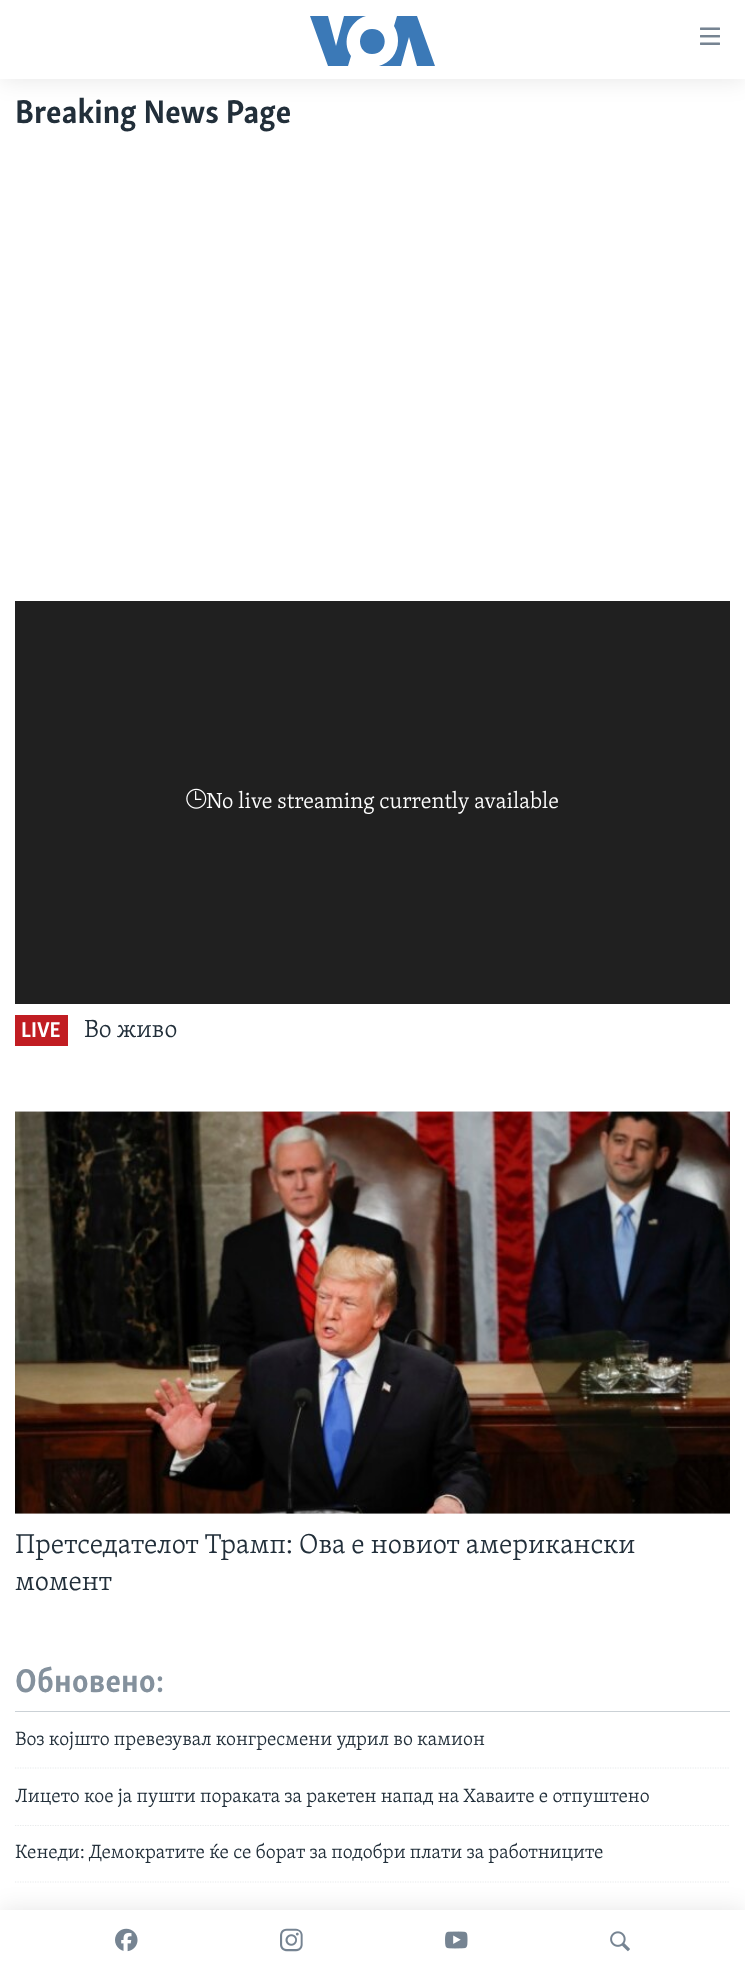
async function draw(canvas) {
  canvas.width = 745;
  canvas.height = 1972;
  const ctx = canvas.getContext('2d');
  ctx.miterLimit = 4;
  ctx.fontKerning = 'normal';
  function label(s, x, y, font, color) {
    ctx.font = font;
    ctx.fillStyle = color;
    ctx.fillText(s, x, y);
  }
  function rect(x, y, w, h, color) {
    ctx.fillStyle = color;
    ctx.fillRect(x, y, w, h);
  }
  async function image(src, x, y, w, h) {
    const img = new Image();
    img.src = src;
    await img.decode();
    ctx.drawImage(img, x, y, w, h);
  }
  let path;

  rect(0, 0, 745, 1972, '#fff');
  ctx.fillStyle = '#0000001a';
  ctx.filter = 'blur(12.5px)';
  ctx.beginPath();
  ctx.rect(0, 0, 745, 79);
  ctx.fill();
  ctx.filter = 'none';
  rect(0, 0, 745, 79, '#fff');
  ctx.fillStyle = '#3b79b7';
  path = new Path2D('M351 56L348 66H328L310 16H328L336 46L344 16H366C349 21 341 42 351 56ZM372 29C356 29 356 54 372 54C389 54 389 29 372 29ZM398 41C398 53 390 63 379 66H401L409 37L417 66H435L417 16H397L394 26C397 31 398 36 398 41Z');
  ctx.fill(path);
  await image('assets/img1.png', 700, 27, 20, 18);
  path = new Path2D('M15 1882H730');
  ctx.strokeStyle = '#e8eaec';
  ctx.lineWidth = 1.2;
  ctx.setLineDash([1.25, 1.25]);
  ctx.stroke(path);
  ctx.fillStyle = '#0000001a';
  ctx.filter = 'blur(12.5px)';
  ctx.beginPath();
  ctx.rect(0, 1910, 745, 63);
  ctx.fill();
  ctx.filter = 'none';
  rect(0, 1910, 745, 62, '#fff');
  await image('assets/img2.png', 115, 1928, 23, 24);
  await image('assets/img3.png', 280, 1928, 23, 24);
  await image('assets/img4.png', 445, 1931, 23, 18);
  await image('assets/img5.png', 610, 1931, 20, 21);
  label('Breaking News Page', 15, 123, 'bold 33.75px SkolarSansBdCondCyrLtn', '#222f3a');
  rect(15, 601, 715, 403, '#202020');
  await image('assets/img6.png', 186, 788, 21, 21);
  label('No live streaming currently available', 206, 808, '300 22.5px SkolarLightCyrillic', '#fff');
  rect(15, 1015, 53, 31, '#c11d22');
  label('LIVE', 21, 1037, 'bold 22px SkolarSansBdCondCyrLtn', '#fff');
  label('Во живо', 84, 1037, '300 25.5px SkolarLightCyrillic', '#222f3a');
  rect(15, 1111, 715, 403, '#f6f7f8');
  await image('assets/img7.png', 15, 1111, 715, 403);
  label('Претседателот Трамп: Ова е новиот американски', 15, 1553, '300 28.1px SkolarLightCyrillic', '#222f3a');
  label('момент', 15, 1590, '300 28.1px SkolarLightCyrillic', '#222f3a');
  rect(15, 1711, 715, 1, '#cbd1d6');
  label('Обновено:', 15, 1692, 'bold 33.75px SkolarSansBdCondCyrLtn', '#84919d');
  label('Воз којшто превезувал конгресмени удрил во камион', 15, 1745, '300 19.7px SkolarLightCyrillic', '#222f3a');
  path = new Path2D('M15 1768H730');
  ctx.stroke(path);
  label('Лицето кое ја пушти пораката за ракетен напад на Хаваите е отпуштено', 15, 1802, '300 19.7px SkolarLightCyrillic', '#222f3a');
  path = new Path2D('M15 1825.5H730');
  ctx.stroke(path);
  label('Кенеди: Демократите ќе се борат за подобри плати за работниците', 15, 1858, '300 19.7px SkolarLightCyrillic', '#222f3a');
}

draw(document.querySelector('canvas'));
